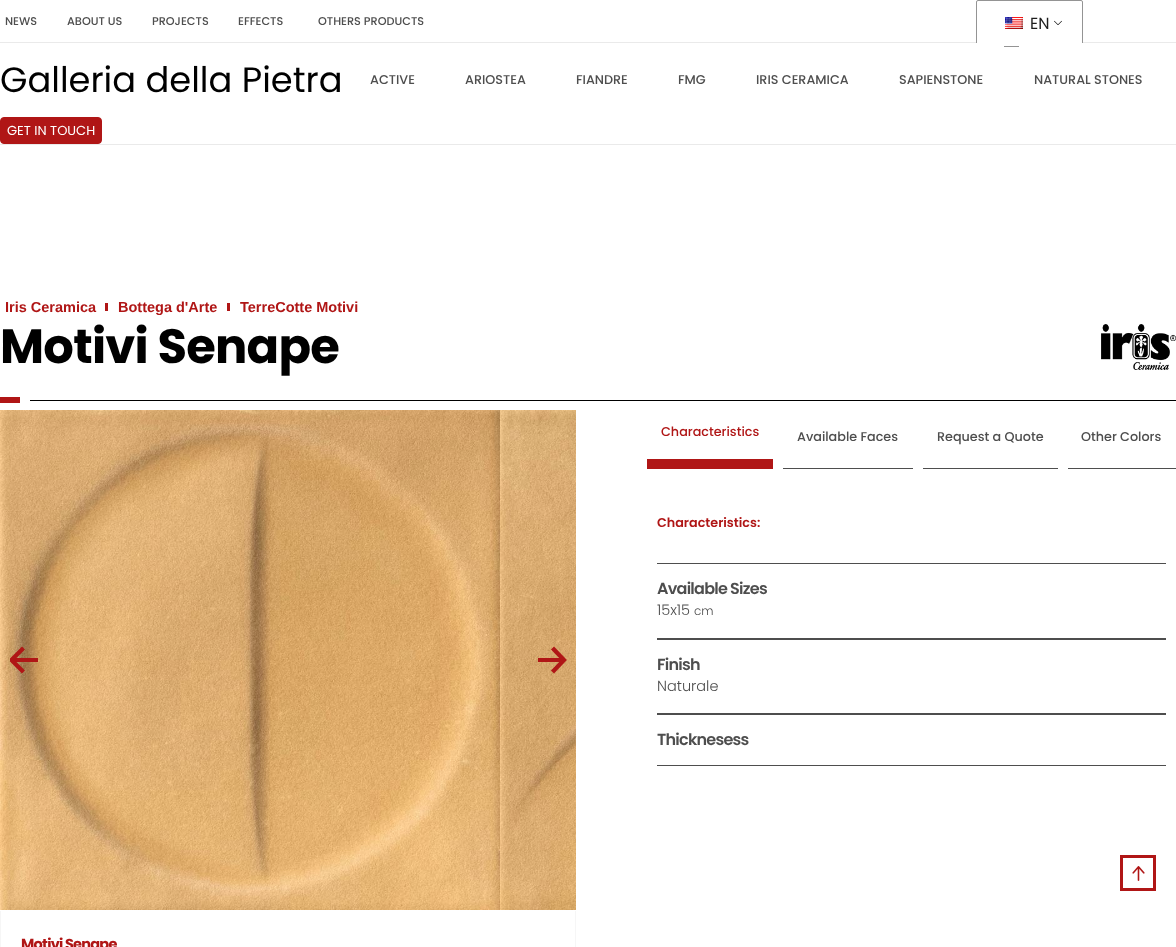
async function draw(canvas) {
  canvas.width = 1176;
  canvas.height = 947;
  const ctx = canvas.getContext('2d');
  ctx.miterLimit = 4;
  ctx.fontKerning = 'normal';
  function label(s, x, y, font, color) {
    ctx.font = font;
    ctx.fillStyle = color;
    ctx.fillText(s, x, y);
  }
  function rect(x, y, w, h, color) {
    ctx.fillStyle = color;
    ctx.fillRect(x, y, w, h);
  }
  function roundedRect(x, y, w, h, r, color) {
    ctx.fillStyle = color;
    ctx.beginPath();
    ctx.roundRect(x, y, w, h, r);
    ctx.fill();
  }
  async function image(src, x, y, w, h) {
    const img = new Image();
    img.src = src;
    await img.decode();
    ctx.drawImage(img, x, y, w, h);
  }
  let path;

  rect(0, 0, 1176, 947, '#fff');
  rect(0, 42, 1176, 1, '#eaeaea');
  label('NEWS', 5, 25, '500 11.25px Poppins', '#4e4e4e');
  label('ABOUT US', 67, 25, '500 11.25px Poppins', '#4e4e4e');
  label('PROJECTS', 152, 25, '500 11.25px Poppins', '#4e4e4e');
  label('EFFECTS', 238, 25, '500 11.25px Poppins', '#4e4e4e');
  label('OTHERS PRODUCTS', 318, 25, '500 11.25px Poppins', '#4e4e4e');
  roundedRect(976, 0, 107, 47, 2, '#fff');
  await image('assets/img1.png', 1054, 20, 8, 5);
  ctx.beginPath();
  ctx.roundRect(976.5, 0.5, 106, 46, 1.5);
  ctx.strokeStyle = '#949494';
  ctx.stroke();
  await image('assets/img2.png', 1005, 17, 18, 12);
  label('EN', 1030, 29, '16px Poppins', '#1e1e1e');
  rect(0, 144, 1176, 1, '#eaeaea');
  label('Galleria della Pietra', 0, 92, '35.25px Poppins', '#000');
  label('ACTIVE', 370, 84, '500 12.75px Poppins', '#4e4e4e');
  label('ARIOSTEA', 465, 84, '500 12.75px Poppins', '#4e4e4e');
  label('FIANDRE', 576, 84, '500 12.75px Poppins', '#4e4e4e');
  label('FMG', 678, 84, '500 12.75px Poppins', '#4e4e4e');
  label('IRIS CERAMICA', 756, 84, '500 12.75px Poppins', '#4e4e4e');
  rect(976, 43, 28, 4, '#fff');
  label('SAPIENSTONE', 899, 84, '500 12.75px Poppins', '#4e4e4e');
  rect(1019, 43, 64, 4, '#fff');
  label('NATURAL STONES', 1034, 84, '500 12.75px Poppins', '#4e4e4e');
  ctx.fillStyle = '#b01616';
  ctx.beginPath();
  ctx.roundRect(0.5, 117.5, 101, 26, 3.5);
  ctx.fill();
  ctx.strokeStyle = '#b01616';
  ctx.stroke();
  label('GET IN TOUCH', 7, 135, '13px Poppins', '#fff');
  label('Iris Ceramica', 5, 312, 'bold 14.5px Liberation Sans', '#b01616');
  rect(105, 303, 3, 8, '#b01616');
  label('Bottega d\'Arte', 118, 312, 'bold 14.5px Liberation Sans', '#b01616');
  rect(227, 303, 3, 8, '#b01616');
  label('TerreCotte Motivi', 240, 312, 'bold 14.5px Liberation Sans', '#b01616');
  ctx.letterSpacing = '-0.75px';
  label('Motivi Senape', 0, 363, 'bold 48px Poppins', '#000');
  await image('assets/img3.png', 1101, 324, 75, 46);
  rect(0, 397, 20, 6, '#b01616');
  rect(30, 400, 1146, 1, '#000');
  rect(647, 459, 126, 10, '#b01616');
  ctx.letterSpacing = '0px';
  label('Characteristics', 661, 436, '500 12.75px Poppins', '#b01616');
  rect(783, 468, 130, 1, '#4e4e4e');
  label('Available Faces', 797, 441, '500 12.75px Poppins', '#4e4e4e');
  rect(923, 468, 135, 1, '#4e4e4e');
  label('Request a Quote', 937, 441, '500 12.75px Poppins', '#4e4e4e');
  rect(1068, 468, 108, 1, '#4e4e4e');
  label('Other Colors', 1081, 441, '500 12.75px Poppins', '#4e4e4e');
  label('Characteristics:', 657, 527, '600 12.75px Poppins', '#b01616');
  rect(657, 563, 509, 1, '#4e4e4e');
  rect(657, 638, 509, 2, '#4e4e4e');
  ctx.letterSpacing = '-0.75px';
  label('Available Sizes', 657, 594, '600 16px Poppins', '#4e4e4e');
  ctx.letterSpacing = '0px';
  label('15x15', 657, 615, '300 14.5px Poppins', '#4e4e4e');
  label('cm', 694, 615, '300 12px Poppins', '#4e4e4e');
  rect(657, 713, 509, 2, '#4e4e4e');
  ctx.letterSpacing = '-0.75px';
  label('Finish', 657, 670, '600 16px Poppins', '#4e4e4e');
  ctx.letterSpacing = '0px';
  label('Naturale', 657, 691, '300 14.5px Poppins', '#4e4e4e');
  rect(657, 765, 509, 1, '#4e4e4e');
  ctx.letterSpacing = '-0.75px';
  label('Thicknesess', 657, 745, '600 16px Poppins', '#4e4e4e');
  await image('assets/img4.png', 0, 410, 500, 500);
  await image('assets/img5.png', 500, 410, 76, 500);
  rect(12, 658, 26, 4, '#b01616');
  ctx.save();
  ctx.beginPath();
  ctx.rect(10, 645, 30, 30);
  ctx.clip();
  path = new Path2D('M23.5 672L11.5 660L23.5 648');
  ctx.lineWidth = 4.2;
  ctx.stroke(path);
  ctx.restore();
  rect(538, 658, 26, 4, '#b01616');
  path = new Path2D('M552.5 648L564 660L552.5 672');
  ctx.lineWidth = 4.2;
  ctx.stroke(path);
  ctx.fillStyle = '#f6f6f6';
  path = new Path2D('M0 911H576V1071C576 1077 572 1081 566 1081H10C4 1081 0 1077 0 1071ZM1 911H575V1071C575 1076 571 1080 566 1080H10C5 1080 1 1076 1 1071Z');
  ctx.fill(path, 'evenodd');
  label('Motivi Senape', 21, 949, 'bold 14.5px Poppins', '#b01616');
  ctx.lineWidth = 3;
  ctx.strokeRect(1121.5, 856.5, 33, 33);
  await image('assets/img6.png', 1132, 866, 13, 15);
}

draw(document.querySelector('canvas'));
